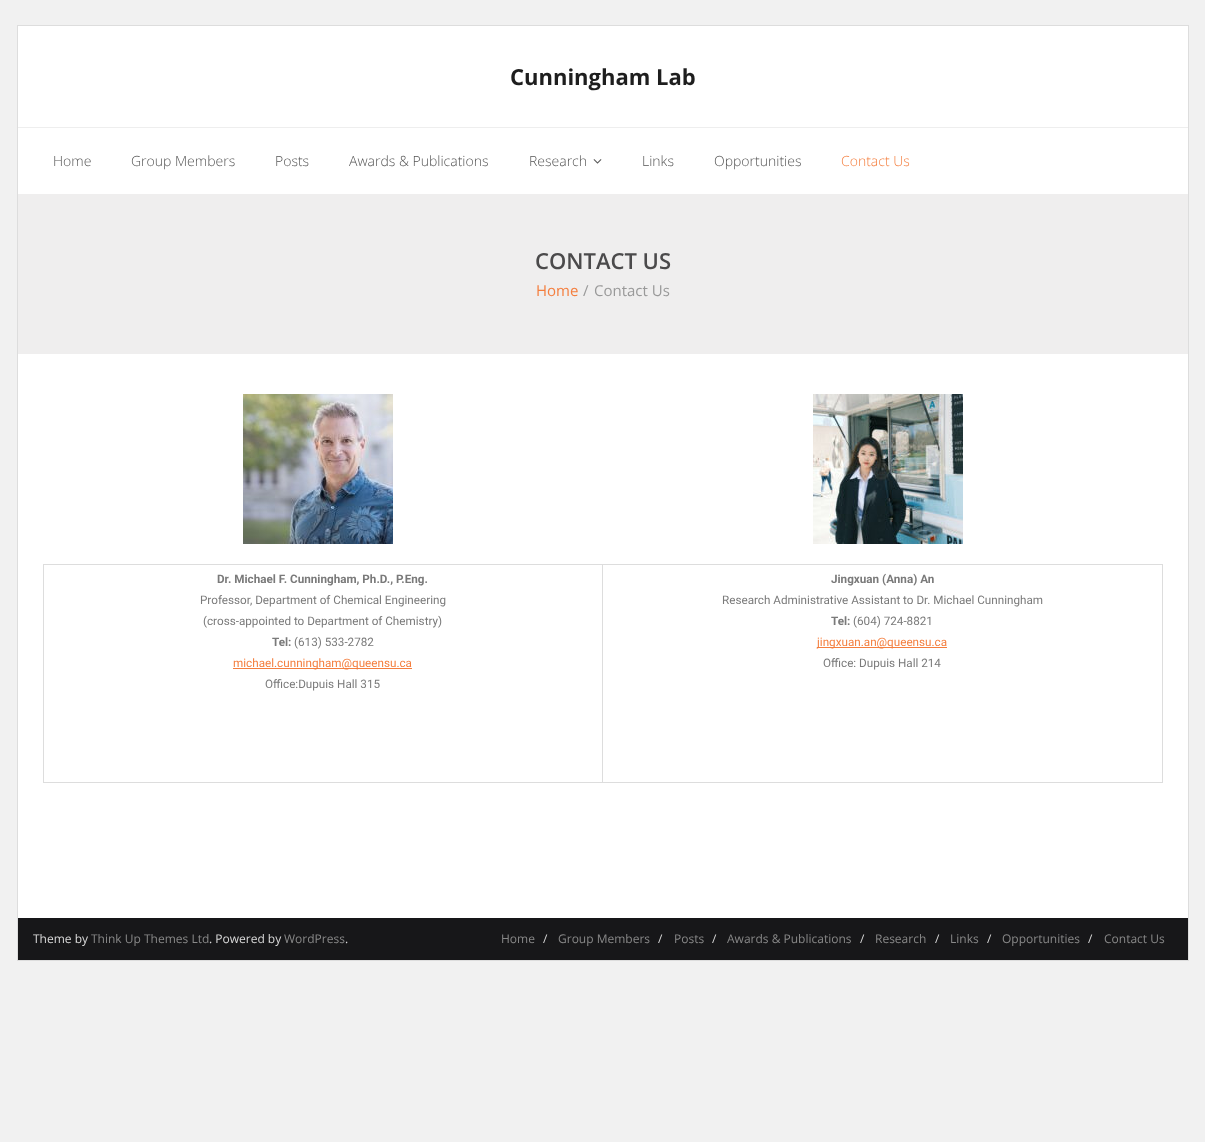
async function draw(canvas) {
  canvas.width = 1205;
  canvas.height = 1142;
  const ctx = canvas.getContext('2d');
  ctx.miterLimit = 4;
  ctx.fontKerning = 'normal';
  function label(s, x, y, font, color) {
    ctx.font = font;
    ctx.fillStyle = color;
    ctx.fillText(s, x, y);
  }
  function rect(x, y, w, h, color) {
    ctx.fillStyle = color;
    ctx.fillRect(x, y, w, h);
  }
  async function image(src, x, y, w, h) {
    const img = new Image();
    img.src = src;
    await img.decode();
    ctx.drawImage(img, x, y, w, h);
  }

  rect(0, 0, 1205, 1142, '#f1f1f1');
  rect(18, 26, 1170, 892, '#fff');
  ctx.strokeStyle = '#ddd';
  ctx.strokeRect(17.5, 25.5, 1171, 935);
  label('Cunningham Lab', 510, 85, 'bold 22px Open Sans', '#1e1e1e');
  rect(18, 127, 1170, 1, '#eee');
  label('Home', 53, 166, '300 14px Open Sans', '#555');
  label('Group Members', 131, 166, '300 14px Open Sans', '#555');
  label('Posts', 275, 166, '300 14px Open Sans', '#555');
  label('Awards & Publications', 349, 166, '300 14px Open Sans', '#555');
  label('Research', 529, 166, '300 14px Open Sans', '#555');
  await image('assets/img1.png', 593, 159, 9, 5);
  label('Links', 642, 166, '300 14px Open Sans', '#555');
  label('Opportunities', 714, 166, '300 14px Open Sans', '#555');
  label('Contact Us', 841, 166, '300 14px Open Sans', '#f47e3e');
  rect(18, 194, 1170, 160, '#efeeee');
  label('CONTACT US', 535, 269, '600 22px Open Sans', '#4b4a4b');
  label('Home', 536, 296, '15px Open Sans', '#f47e3e');
  label('/', 583, 296, '15px Open Sans', '#999');
  label('Contact Us', 594, 296, '15px Open Sans', '#999');
  await image('assets/img2.png', 243, 394, 150, 150);
  await image('assets/img3.png', 813, 394, 150, 150);
  rect(43, 564, 1120, 1, '#ddd');
  rect(1162, 564, 1, 219, '#ddd');
  rect(43, 782, 1120, 1, '#ddd');
  rect(43, 564, 1, 219, '#ddd');
  rect(602, 564, 1, 219, '#ddd');
  label('Dr. Michael F. Cunningham, Ph.D., P.Eng.', 217, 583, 'bold 11.7px Roboto', '#7a7a7a');
  label('Professor, Department of Chemical Engineering', 200, 604, '11.7px Roboto', '#7a7a7a');
  label('(cross-appointed to Department of Chemistry)', 203, 625, '11.7px Roboto', '#7a7a7a');
  label('Tel:', 272, 646, 'bold 11.7px Roboto', '#7a7a7a');
  label('(613) 533-2782', 294, 646, '11.7px Roboto', '#7a7a7a');
  rect(233, 668, 179, 1, '#f47e3e');
  label('michael.cunningham@queensu.ca', 233, 667, '11.7px Roboto', '#f47e3e');
  label('Office:Dupuis Hall 315', 265, 688, '11.7px Roboto', '#7a7a7a');
  label('Jingxuan (Anna) An', 831, 583, 'bold 11.7px Roboto', '#7a7a7a');
  label('Research Administrative Assistant to Dr. Michael Cunningham', 722, 604, '11.7px Roboto', '#7a7a7a');
  label('Tel:', 831, 625, 'bold 11.7px Roboto', '#7a7a7a');
  label('(604) 724-8821', 853, 625, '11.7px Roboto', '#7a7a7a');
  rect(817, 647, 130, 1, '#f47e3e');
  label('jingxuan.an@queensu.ca', 817, 646, '11.7px Roboto', '#f47e3e');
  label('Office: Dupuis Hall 214', 823, 667, '11.7px Roboto', '#7a7a7a');
  rect(18, 918, 1170, 42, '#171719');
  label('Theme by', 33, 943, '12px Open Sans', '#dadada');
  label('Think Up Themes Ltd', 91, 943, '12px Open Sans', '#888');
  label('. Powered by', 209, 943, '12px Open Sans', '#dadada');
  label('WordPress', 284, 943, '12px Open Sans', '#888');
  label('.', 345, 943, '12px Open Sans', '#dadada');
  label('Home', 501, 943, '12px Open Sans', '#888');
  label('/', 543, 943, '12px Open Sans', '#dadada');
  label('Group Members', 558, 943, '12px Open Sans', '#888');
  label('/', 658, 943, '12px Open Sans', '#dadada');
  label('Posts', 674, 943, '12px Open Sans', '#888');
  label('/', 712, 943, '12px Open Sans', '#dadada');
  label('Awards & Publications', 727, 943, '12px Open Sans', '#888');
  label('/', 860, 943, '12px Open Sans', '#dadada');
  label('Research', 875, 943, '12px Open Sans', '#888');
  label('/', 935, 943, '12px Open Sans', '#dadada');
  label('Links', 950, 943, '12px Open Sans', '#888');
  label('/', 987, 943, '12px Open Sans', '#dadada');
  label('Opportunities', 1002, 943, '12px Open Sans', '#888');
  label('/', 1088, 943, '12px Open Sans', '#dadada');
  label('Contact Us', 1104, 943, '12px Open Sans', '#888');
}

draw(document.querySelector('canvas'));
